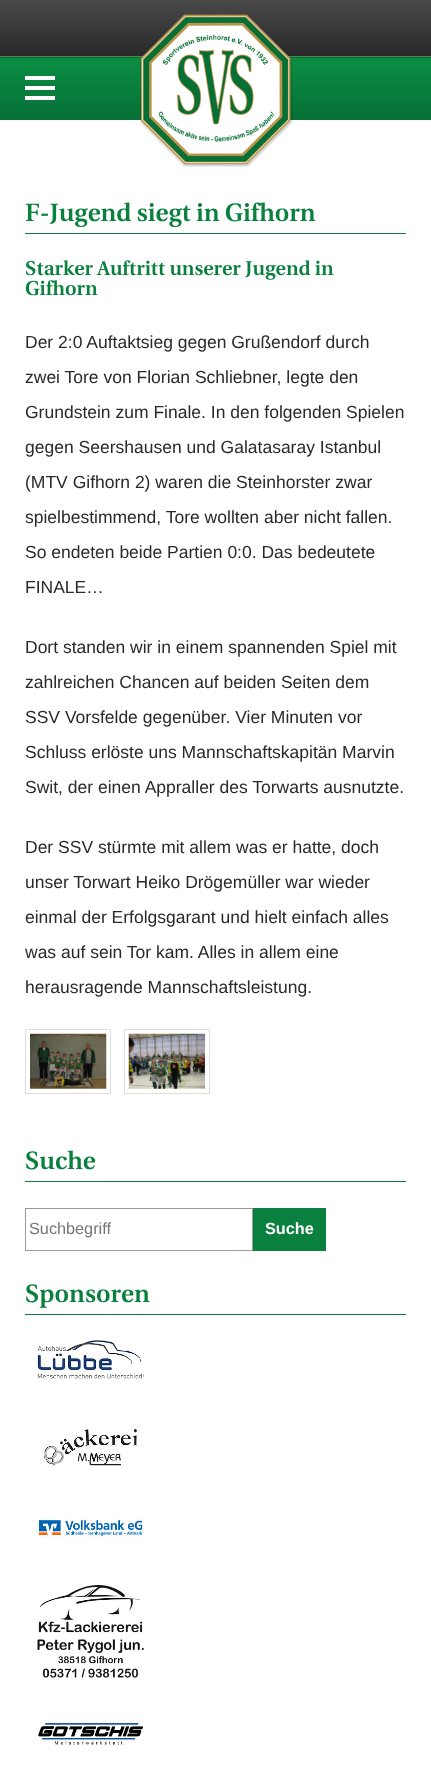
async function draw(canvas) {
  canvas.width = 431;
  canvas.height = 1769;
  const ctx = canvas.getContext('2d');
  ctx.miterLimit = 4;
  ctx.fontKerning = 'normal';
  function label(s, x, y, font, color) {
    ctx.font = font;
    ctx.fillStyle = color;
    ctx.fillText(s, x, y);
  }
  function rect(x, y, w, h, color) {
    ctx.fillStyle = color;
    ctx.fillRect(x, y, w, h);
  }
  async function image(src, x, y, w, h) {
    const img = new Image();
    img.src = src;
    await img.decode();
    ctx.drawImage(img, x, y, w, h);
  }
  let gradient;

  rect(0, 0, 431, 1769, '#fff');
  gradient = ctx.createLinearGradient(216, 0, 216, 56);
  gradient.addColorStop(0, '#494949');
  gradient.addColorStop(1, '#292929');
  ctx.fillStyle = gradient;
  ctx.fillRect(0, 0, 431, 56);
  gradient = ctx.createLinearGradient(216, 56, 216, 113);
  gradient.addColorStop(0, '#494949');
  gradient.addColorStop(1, '#292929');
  ctx.fillStyle = gradient;
  ctx.fillRect(0, 57, 431, 1);
  rect(0, 56, 431, 1, '#0fab35');
  gradient = ctx.createLinearGradient(216, 57, 216, 120);
  gradient.addColorStop(0, '#0b8f44');
  gradient.addColorStop(1, '#077036');
  ctx.fillStyle = gradient;
  ctx.fillRect(0, 58, 431, 62);
  rect(25, 76, 30, 4, '#fff');
  rect(25, 86, 30, 4, '#fff');
  rect(25, 96, 30, 4, '#fff');
  await image('assets/img1.png', 139, 14, 154, 153);
  rect(25, 233, 381, 1, '#09803d');
  label('F-Jugend siegt in Gifhorn', 25, 221, 'bold 25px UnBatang', '#09803d');
  label('Starker Auftritt unserer Jugend in', 25, 275, 'bold 20px UnBatang', '#09803d');
  label('Gifhorn', 25, 295, 'bold 20px UnBatang', '#09803d');
  label('Der 2:0 Auftaktsieg gegen Grußendorf durch', 25, 348, '17.5px Liberation Sans', '#292929');
  label('zwei Tore von Florian Schliebner, legte den', 25, 383, '17.5px Liberation Sans', '#292929');
  label('Grundstein zum Finale. In den folgenden Spielen', 25, 418, '17.5px Liberation Sans', '#292929');
  label('gegen Seershausen und Galatasaray Istanbul', 25, 453, '17.5px Liberation Sans', '#292929');
  label('(MTV Gifhorn 2) waren die Steinhorster zwar', 25, 488, '17.5px Liberation Sans', '#292929');
  label('spielbestimmend, Tore wollten aber nicht fallen.', 25, 523, '17.5px Liberation Sans', '#292929');
  label('So endeten beide Partien 0:0. Das bedeutete', 25, 558, '17.5px Liberation Sans', '#292929');
  label('FINALE…', 25, 593, '17.5px Liberation Sans', '#292929');
  label('Dort standen wir in einem spannenden Spiel mit', 25, 653, '17.5px Liberation Sans', '#292929');
  label('zahlreichen Chancen auf beiden Seiten dem', 25, 688, '17.5px Liberation Sans', '#292929');
  label('SSV Vorsfelde gegenüber. Vier Minuten vor', 25, 723, '17.5px Liberation Sans', '#292929');
  label('Schluss erlöste uns Mannschaftskapitän Marvin', 25, 758, '17.5px Liberation Sans', '#292929');
  label('Swit, der einen Appraller des Torwarts ausnutzte.', 25, 793, '17.5px Liberation Sans', '#292929');
  label('Der SSV stürmte mit allem was er hatte, doch', 25, 853, '17.5px Liberation Sans', '#292929');
  label('unser Torwart Heiko Drögemüller war wieder', 25, 888, '17.5px Liberation Sans', '#292929');
  label('einmal der Erfolgsgarant und hielt einfach alles', 25, 923, '17.5px Liberation Sans', '#292929');
  label('was auf sein Tor kam. Alles in allem eine', 25, 958, '17.5px Liberation Sans', '#292929');
  label('herausragende Mannschaftsleistung.', 25, 993, '17.5px Liberation Sans', '#292929');
  ctx.strokeStyle = '#ddd';
  ctx.strokeRect(25.5, 1029.5, 85, 64);
  await image('assets/img2.png', 30, 1033, 77, 56);
  ctx.strokeRect(124.5, 1029.5, 85, 64);
  await image('assets/img3.png', 128, 1033, 77, 56);
  rect(25, 1181, 381, 1, '#09803d');
  label('Suche', 25, 1169, 'bold 25px UnBatang', '#09803d');
  ctx.strokeStyle = '#999';
  ctx.strokeRect(25.5, 1208.5, 227, 42);
  label('Suchbegriff', 29, 1234, '16.25px Liberation Sans', '#757575');
  rect(253, 1208, 73, 43, '#09803d');
  label('Suche', 265, 1234, 'bold 16.25px Liberation Sans', '#fff');
  rect(25, 1314, 381, 1, '#09803d');
  label('Sponsoren', 25, 1302, 'bold 25px UnBatang', '#09803d');
  await image('assets/img4.png', 37, 1340, 107, 39);
  await image('assets/img5.png', 43, 1429, 95, 37);
  await image('assets/img6.png', 37, 1518, 107, 21);
  await image('assets/img7.png', 37, 1585, 107, 93);
  await image('assets/img8.png', 38, 1723, 105, 22);
}

draw(document.querySelector('canvas'));
